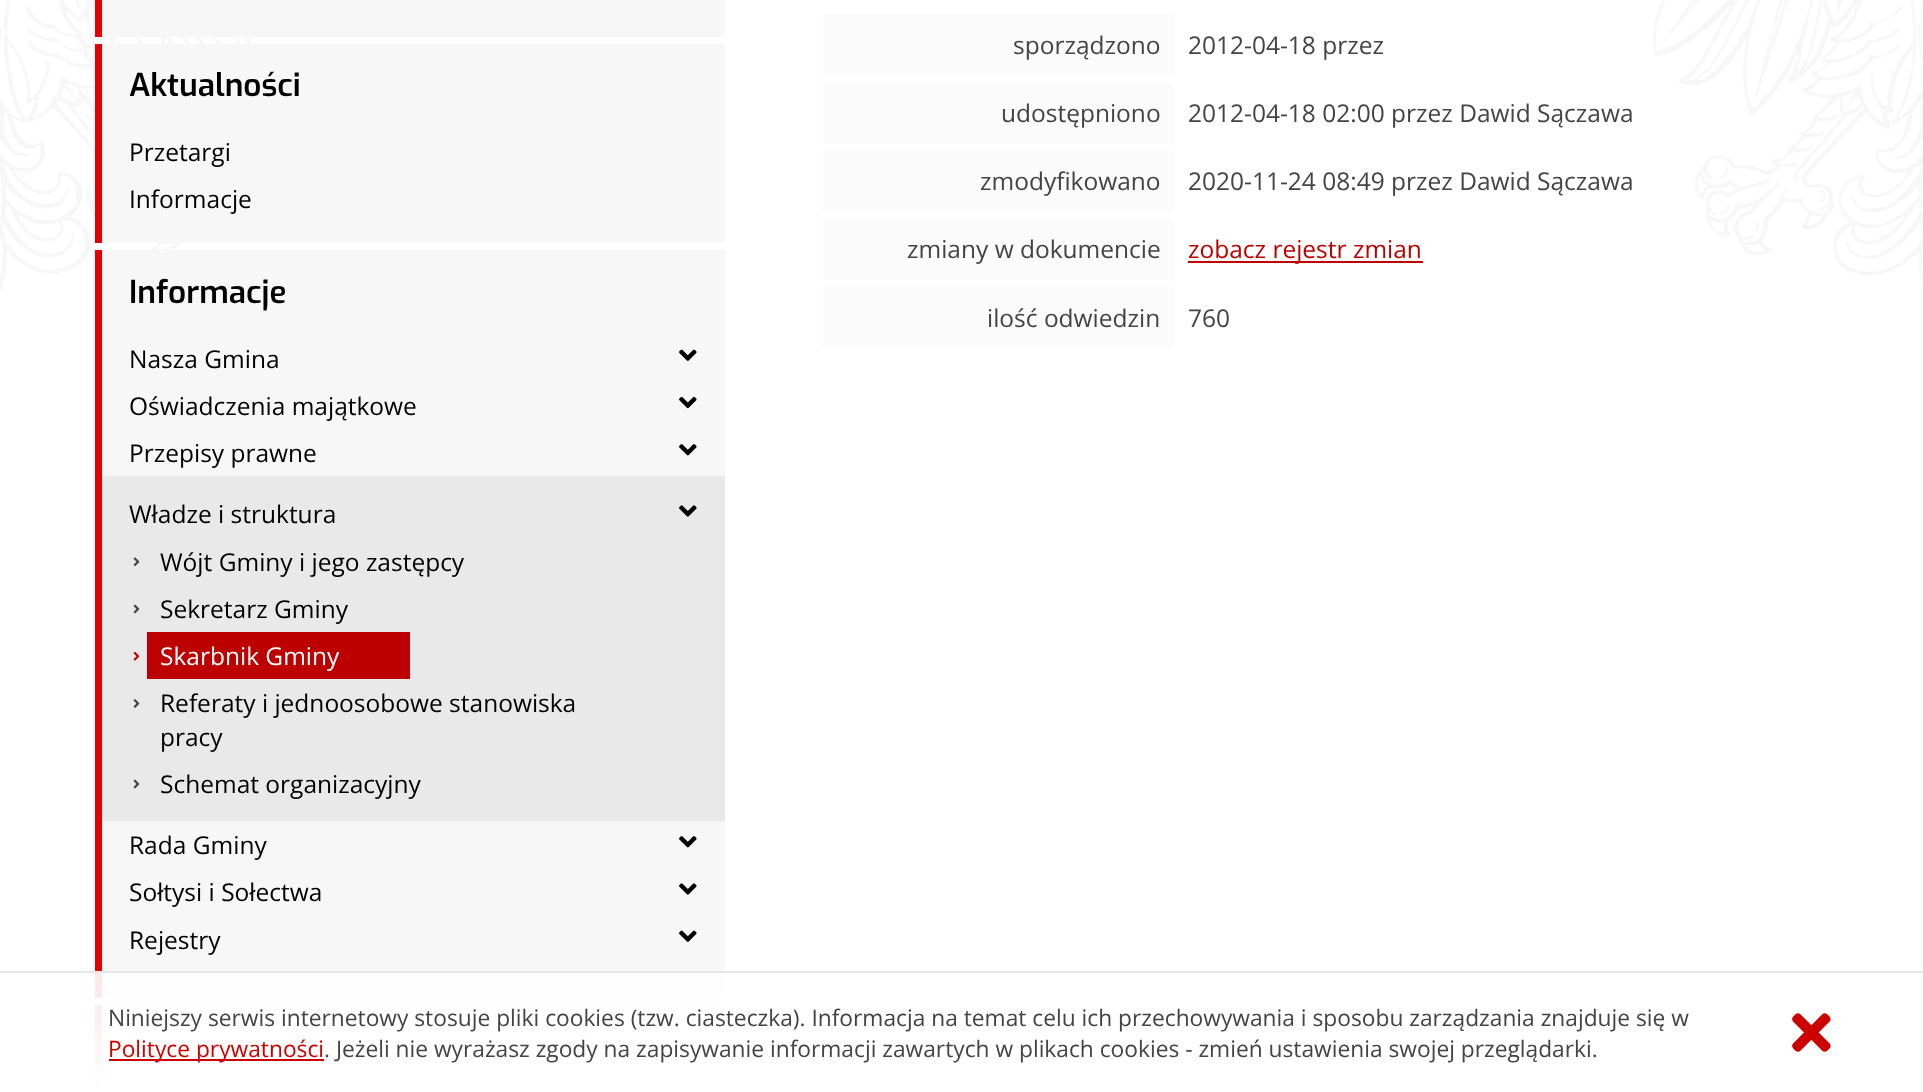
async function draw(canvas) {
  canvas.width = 1923;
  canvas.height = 1092;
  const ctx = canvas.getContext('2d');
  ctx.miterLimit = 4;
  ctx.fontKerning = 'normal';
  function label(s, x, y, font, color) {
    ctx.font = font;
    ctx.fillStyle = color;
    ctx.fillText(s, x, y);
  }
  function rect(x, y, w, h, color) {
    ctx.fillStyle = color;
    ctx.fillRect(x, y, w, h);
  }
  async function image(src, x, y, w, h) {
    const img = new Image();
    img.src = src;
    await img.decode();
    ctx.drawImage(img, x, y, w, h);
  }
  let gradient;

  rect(0, 0, 1923, 1092, '#fff');
  await image('assets/img1.png', 0, 0, 1923, 291);
  rect(102, 0, 623, 37, '#f7f7f7');
  rect(95, 0, 7, 37, '#e70000');
  rect(102, 44, 623, 199, '#f7f7f7');
  rect(95, 44, 7, 199, '#e70000');
  label('Aktualności', 129, 96, '600 31.5px Exo', '#000');
  label('Przetargi', 129, 161, '24.5px Open Sans', '#000');
  label('Informacje', 129, 208, '24.5px Open Sans', '#000');
  rect(102, 250, 623, 748, '#f7f7f7');
  rect(95, 250, 7, 748, '#e70000');
  label('Informacje', 129, 303, '600 31.5px Exo', '#000');
  label('Nasza Gmina', 129, 368, '24.5px Open Sans', '#000');
  await image('assets/img2.png', 679, 349, 18, 12);
  label('Oświadczenia majątkowe', 129, 415, '24.5px Open Sans', '#000');
  await image('assets/img3.png', 679, 396, 18, 13);
  label('Przepisy prawne', 129, 462, '24.5px Open Sans', '#000');
  await image('assets/img4.png', 679, 444, 18, 12);
  rect(102, 476, 623, 345, '#e9e9e9');
  label('Władze i struktura', 129, 523, '24.5px Open Sans', '#000');
  await image('assets/img5.png', 679, 505, 18, 12);
  await image('assets/img6.png', 133, 557, 7, 10);
  label('Wójt Gminy i jego zastępcy', 160, 571, '24.5px Open Sans', '#000');
  await image('assets/img7.png', 133, 604, 7, 10);
  label('Sekretarz Gminy', 160, 618, '24.5px Open Sans', '#000');
  await image('assets/img8.png', 133, 651, 7, 10);
  rect(147, 632, 263, 47, '#bd0000');
  label('Skarbnik Gminy', 160, 665, '24.5px Open Sans', '#fff');
  await image('assets/img9.png', 133, 699, 7, 9);
  label('Referaty i jednoosobowe stanowiska', 160, 712, '24.5px Open Sans', '#000');
  label('pracy', 160, 746, '24.5px Open Sans', '#000');
  await image('assets/img7.png', 133, 779, 7, 10);
  label('Schemat organizacyjny', 160, 793, '24.5px Open Sans', '#000');
  label('Rada Gminy', 129, 854, '24.5px Open Sans', '#000');
  await image('assets/img4.png', 679, 836, 18, 12);
  label('Sołtysi i Sołectwa', 129, 901, '24.5px Open Sans', '#000');
  await image('assets/img10.png', 679, 883, 18, 12);
  label('Rejestry', 129, 949, '24.5px Open Sans', '#000');
  await image('assets/img2.png', 679, 930, 18, 12);
  rect(102, 1005, 623, 80, '#f7f7f7');
  rect(95, 1005, 7, 87, '#e70000');
  rect(823, 14, 351, 61, '#fbfbfb');
  label('sporządzono', 1013, 54, '24.5px Open Sans', '#444');
  label('2012-04-18 przez', 1188, 54, '24.5px Open Sans', '#444');
  rect(823, 82, 351, 62, '#fbfbfb');
  label('udostępniono', 1001, 122, '24.5px Open Sans', '#444');
  label('2012-04-18 02:00 przez Dawid Sączawa', 1188, 122, '24.5px Open Sans', '#444');
  rect(823, 151, 351, 61, '#fbfbfb');
  label('zmodyfikowano', 980, 190, '24.5px Open Sans', '#444');
  label('2020-11-24 08:49 przez Dawid Sączawa', 1188, 190, '24.5px Open Sans', '#444');
  rect(823, 219, 351, 61, '#fbfbfb');
  label('zmiany w dokumencie', 907, 258, '24.5px Open Sans', '#444');
  rect(1188, 261, 235, 2, '#bd0000');
  label('zobacz rejestr zmian', 1188, 258, '24.5px Open Sans', '#bd0000');
  rect(823, 287, 351, 61, '#fbfbfb');
  label('ilość odwiedzin', 987, 327, '24.5px Open Sans', '#444');
  label('760', 1188, 327, '24.5px Open Sans', '#444');
  gradient = ctx.createLinearGradient(962, 973, 962, 1092);
  gradient.addColorStop(0, '#ffffffe6');
  gradient.addColorStop(1, '#fff');
  ctx.fillStyle = gradient;
  ctx.fillRect(95, 973, 630, 119);
  rect(0, 971, 1923, 2, '#e6e6e6');
  label('Niniejszy serwis internetowy stosuje pliki cookies (tzw. ciasteczka). Informacja na temat celu ich przechowywania i sposobu zarządzania znajduje się w', 108, 1026, '22.75px Open Sans', '#444');
  rect(109, 1059, 215, 2, '#cd0000');
  label('Polityce prywatności', 108, 1057, '22.75px Open Sans', '#cd0000');
  label('. Jeżeli nie wyrażasz zgody na zapisywanie informacji zawartych w plikach cookies - zmień ustawienia swojej przeglądarki.', 324, 1057, '22.75px Open Sans', '#444');
  await image('assets/img11.png', 1792, 1013, 39, 39);
}

draw(document.querySelector('canvas'));
